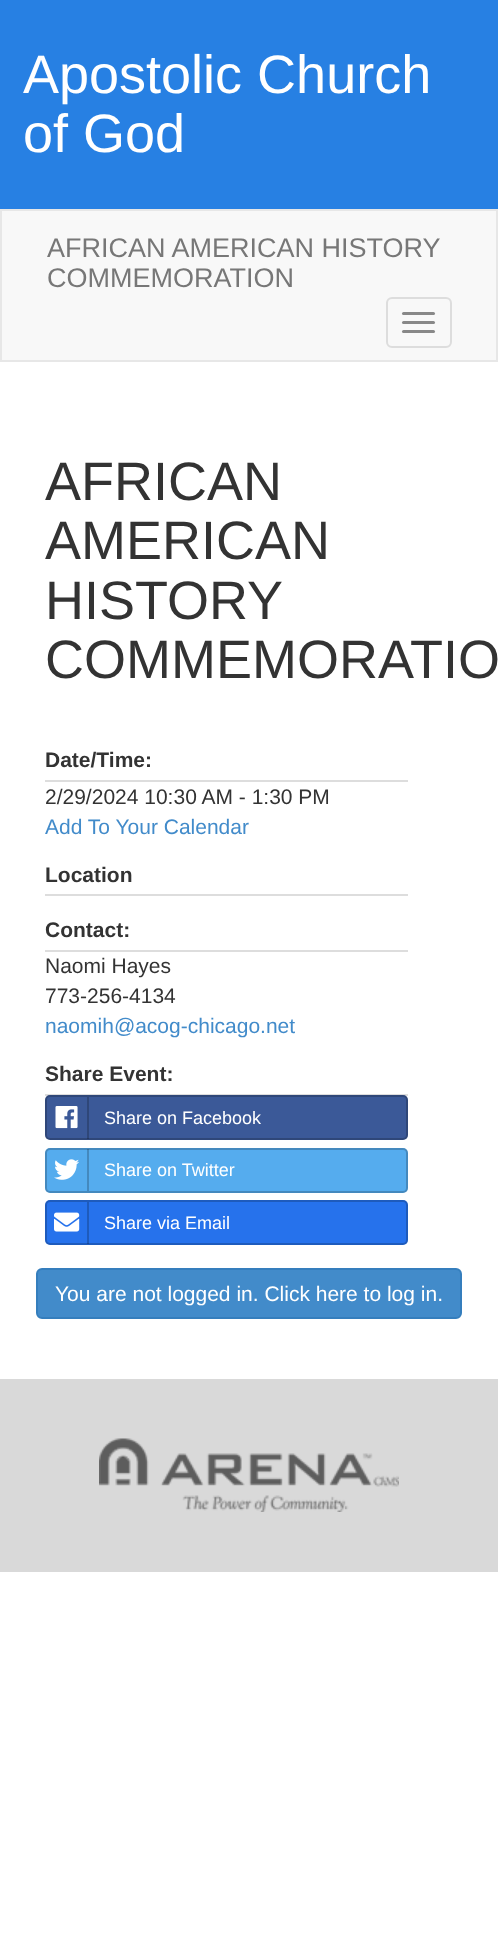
async function draw(canvas) {
  canvas.width = 498;
  canvas.height = 1948;
  const ctx = canvas.getContext('2d');
  ctx.miterLimit = 4;
  ctx.fontKerning = 'normal';
  function label(s, x, y, font, color) {
    ctx.font = font;
    ctx.fillStyle = color;
    ctx.fillText(s, x, y);
  }
  function rect(x, y, w, h, color) {
    ctx.fillStyle = color;
    ctx.fillRect(x, y, w, h);
  }
  function roundedRect(x, y, w, h, r, color) {
    ctx.fillStyle = color;
    ctx.beginPath();
    ctx.roundRect(x, y, w, h, r);
    ctx.fill();
  }
  async function image(src, x, y, w, h) {
    const img = new Image();
    img.src = src;
    await img.decode();
    ctx.drawImage(img, x, y, w, h);
  }

  rect(0, 0, 498, 1948, '#fff');
  rect(0, 0, 498, 209, '#2780e3');
  label('Apostolic Church', 23, 93, '54px Liberation Sans', '#fff');
  label('of God', 23, 152, '54px Liberation Sans', '#fff');
  ctx.fillStyle = '#f8f8f8';
  ctx.beginPath();
  ctx.rect(1, 210, 496, 151);
  ctx.fill();
  ctx.strokeStyle = '#e7e7e7';
  ctx.lineWidth = 2;
  ctx.stroke();
  label('AFRICAN AMERICAN HISTORY', 47, 257, '27px Liberation Sans', '#777');
  label('COMMEMORATION', 47, 287, '27px Liberation Sans', '#777');
  ctx.beginPath();
  ctx.roundRect(387, 298, 64, 49, 5);
  ctx.strokeStyle = '#ddd';
  ctx.stroke();
  roundedRect(402, 312, 33, 3, 1.5, '#888');
  roundedRect(402, 321, 33, 3, 1.5, '#888');
  roundedRect(402, 330, 33, 3, 1.5, '#888');
  label('AFRICAN', 45, 500, '54px Liberation Sans', '#333');
  label('AMERICAN', 45, 559, '54px Liberation Sans', '#333');
  label('HISTORY', 45, 619, '54px Liberation Sans', '#333');
  label('COMMEMORATIO', 45, 678, '54px Liberation Sans', '#333');
  rect(45, 780, 363, 2, '#ddd');
  label('Date/Time:', 45, 767, 'bold 21px Liberation Sans', '#333');
  label('2/29/2024 10:30 AM - 1:30 PM', 45, 804, '21px Liberation Sans', '#333');
  label('Add To Your Calendar', 45, 834, '21px Liberation Sans', '#428bca');
  rect(45, 894, 363, 2, '#ddd');
  label('Location', 45, 882, 'bold 21px Liberation Sans', '#333');
  rect(45, 950, 363, 2, '#ddd');
  label('Contact:', 45, 937, 'bold 21px Liberation Sans', '#333');
  label('Naomi Hayes', 45, 973, '21px Liberation Sans', '#333');
  label('773-256-4134', 45, 1003, '21px Liberation Sans', '#333');
  label('naomih@acog-chicago.net', 45, 1033, '21px Liberation Sans', '#428bca');
  rect(45, 1094, 363, 2, '#ddd');
  label('Share Event:', 45, 1081, 'bold 21px Liberation Sans', '#333');
  roundedRect(45, 1095, 363, 45, 5, '#3b5998');
  ctx.beginPath();
  ctx.roundRect(46, 1096, 361, 43, 4);
  ctx.strokeStyle = '#00000033';
  ctx.stroke();
  rect(87, 1097, 2, 42, '#00000033');
  await image('assets/img1.png', 55, 1106, 23, 23);
  label('Share on Facebook', 104, 1124, '18px Liberation Sans', '#fff');
  roundedRect(45, 1148, 363, 45, 5, '#55acee');
  ctx.beginPath();
  ctx.roundRect(46, 1149, 361, 43, 4);
  ctx.stroke();
  rect(87, 1149, 2, 42, '#00000033');
  await image('assets/img2.png', 54, 1159, 25, 21);
  label('Share on Twitter', 104, 1176, '18px Liberation Sans', '#fff');
  roundedRect(45, 1200, 363, 45, 5, '#2672ec');
  ctx.beginPath();
  ctx.roundRect(46, 1201, 361, 43, 4);
  ctx.stroke();
  rect(87, 1202, 2, 42, '#00000033');
  await image('assets/img3.png', 54, 1212, 26, 20);
  label('Share via Email', 104, 1229, '18px Liberation Sans', '#fff');
  ctx.fillStyle = '#428bca';
  ctx.beginPath();
  ctx.roundRect(37, 1269, 424, 49, 5);
  ctx.fill();
  ctx.strokeStyle = '#357ebd';
  ctx.stroke();
  label('You are not logged in. Click here to log in.', 55, 1301, '21px Liberation Sans', '#fff');
  rect(0, 1379, 498, 193, '#d9d9d9');
  await image('assets/img4.png', 99, 1438, 300, 74);
}

draw(document.querySelector('canvas'));
